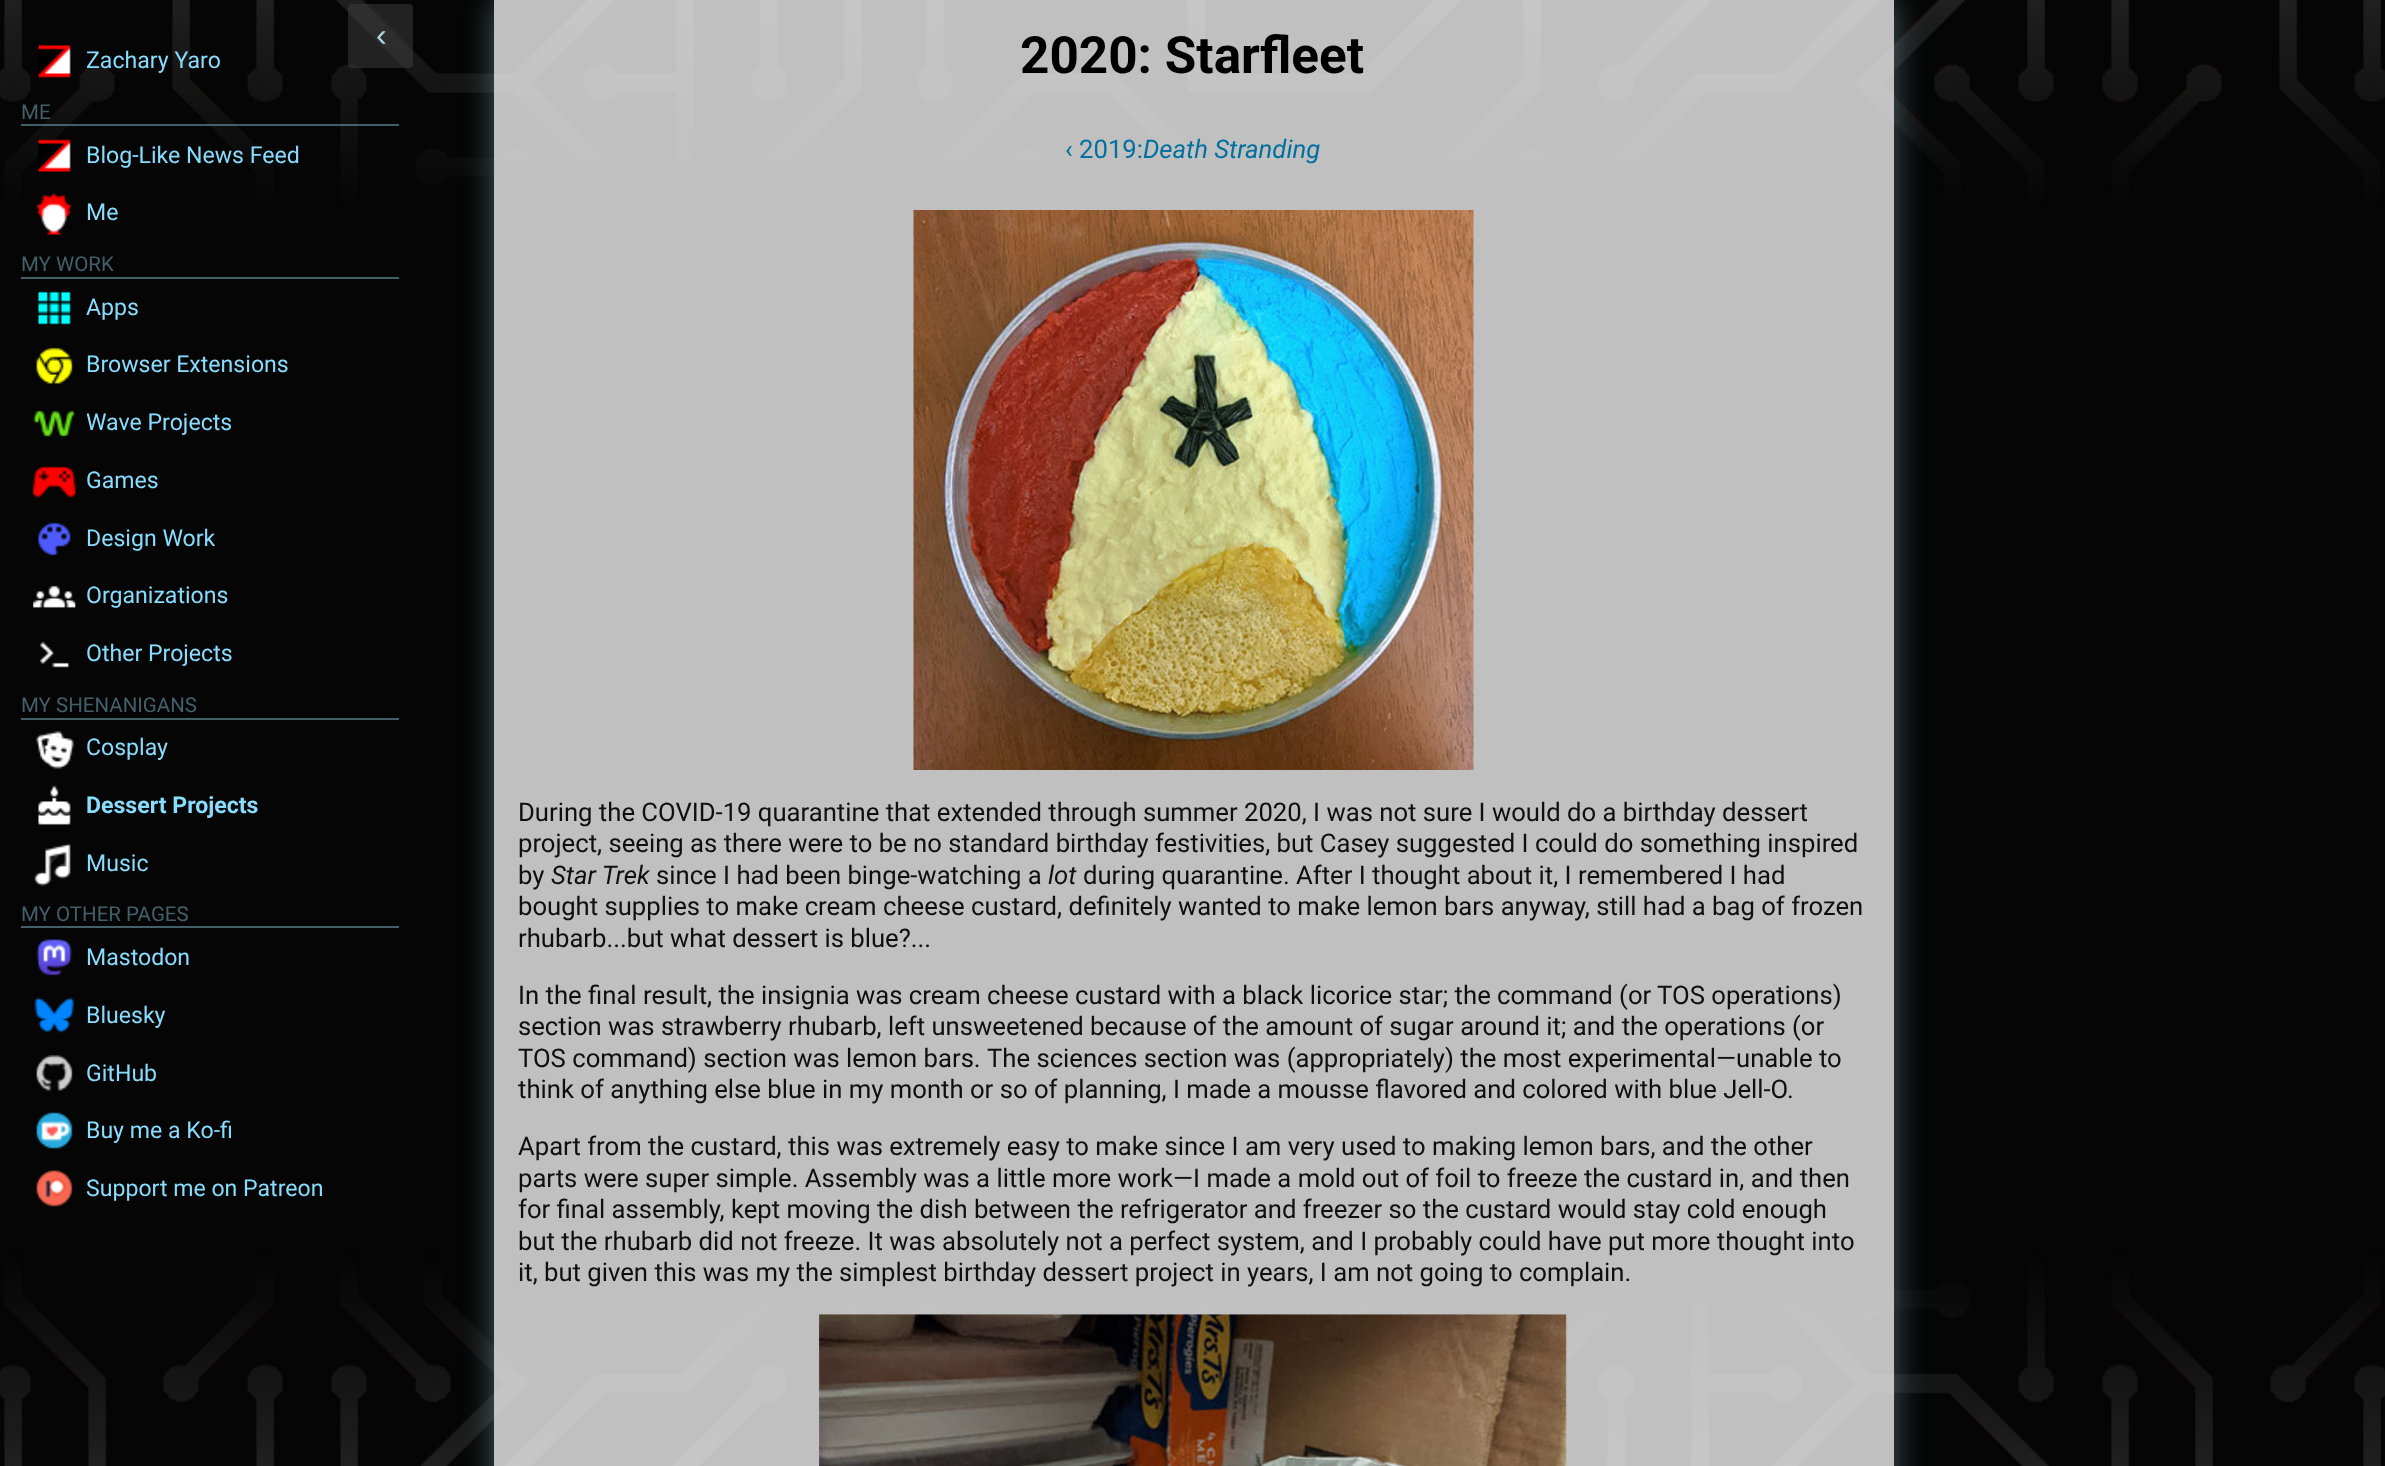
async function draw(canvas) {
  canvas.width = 2385;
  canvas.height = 1466;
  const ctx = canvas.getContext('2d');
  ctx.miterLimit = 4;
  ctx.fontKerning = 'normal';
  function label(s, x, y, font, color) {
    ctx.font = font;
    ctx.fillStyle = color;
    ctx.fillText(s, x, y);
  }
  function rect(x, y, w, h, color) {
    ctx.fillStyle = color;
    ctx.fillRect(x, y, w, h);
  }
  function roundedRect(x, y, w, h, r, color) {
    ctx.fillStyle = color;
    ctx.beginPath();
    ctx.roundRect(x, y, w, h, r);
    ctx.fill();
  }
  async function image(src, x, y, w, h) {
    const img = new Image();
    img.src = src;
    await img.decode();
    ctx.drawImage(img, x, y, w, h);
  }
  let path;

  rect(0, 0, 2385, 1466, '#050505');
  await image('assets/img1.png', 0, 0, 2385, 1466);
  roundedRect(348, 4, 65, 64, 4, '#40404080');
  label('‹', 376, 46, '32px Liberation Sans', '#add8e6');
  await image('assets/img2.png', 38, 45, 33, 33);
  label('Zachary Yaro', 86, 68, '23.1px Roboto', '#8df');
  rect(21, 124, 378, 2, '#80b8ce80');
  label('ME', 21, 119, '20.5px Roboto', '#435f6a');
  await image('assets/img3.png', 38, 139, 33, 33);
  label('Blog-Like News Feed', 86, 163, '23.1px Roboto', '#8df');
  await image('assets/img4.png', 36, 192, 36, 43);
  label('Me', 86, 220, '23.1px Roboto', '#8df');
  rect(21, 277, 378, 2, '#435f6a');
  label('MY WORK', 21, 271, '20.5px Roboto', '#435f6a');
  await image('assets/img5.png', 38, 291, 33, 34);
  label('Apps', 86, 315, '23.1px Roboto', '#8df');
  await image('assets/img6.png', 36, 347, 37, 37);
  label('Browser Extensions', 86, 372, '23.1px Roboto', '#8df');
  await image('assets/img7.png', 33, 410, 43, 27);
  label('Wave Projects', 86, 430, '23.1px Roboto', '#8df');
  await image('assets/img8.png', 33, 466, 43, 32);
  label('Games', 86, 488, '23.1px Roboto', '#8df');
  await image('assets/img9.png', 38, 522, 33, 34);
  label('Design Work', 86, 546, '23.1px Roboto', '#8df');
  await image('assets/img10.png', 33, 585, 43, 23);
  label('Organizations', 86, 603, '23.1px Roboto', '#8df');
  await image('assets/img11.png', 39, 641, 30, 27);
  label('Other Projects', 86, 661, '23.1px Roboto', '#8df');
  rect(21, 718, 378, 2, '#435f6a');
  label('MY SHENANIGANS', 21, 712, '20.5px Roboto', '#435f6a');
  await image('assets/img12.png', 36, 731, 38, 38);
  label('Cosplay', 86, 755, '23.1px Roboto', '#8df');
  await image('assets/img13.png', 38, 785, 33, 40);
  label('Dessert Projects', 86, 813, 'bold 23.1px Roboto', '#8df');
  await image('assets/img14.png', 34, 843, 37, 43);
  label('Music', 86, 871, '23.1px Roboto', '#8df');
  rect(21, 926, 378, 2, '#435f6a');
  label('MY OTHER PAGES', 21, 921, '20.5px Roboto', '#435f6a');
  await image('assets/img15.png', 36, 939, 37, 37);
  label('Mastodon', 86, 965, '23.1px Roboto', '#8df');
  await image('assets/img16.png', 34, 997, 40, 36);
  label('Bluesky', 86, 1023, '23.1px Roboto', '#8df');
  await image('assets/img17.png', 36, 1054, 37, 37);
  label('GitHub', 86, 1081, '23.1px Roboto', '#8df');
  await image('assets/img18.png', 36, 1112, 37, 37);
  label('Buy me a Ko-fi', 86, 1138, '23.1px Roboto', '#8df');
  await image('assets/img19.png', 36, 1170, 37, 37);
  label('Support me on Patreon', 86, 1196, '23.1px Roboto', '#8df');
  ctx.save();
  path = new Path2D('M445 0H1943V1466H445ZM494 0H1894V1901H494Z');
  ctx.clip(path, 'evenodd');
  ctx.fillStyle = '#a0d8e666';
  ctx.filter = 'blur(16px)';
  ctx.beginPath();
  ctx.rect(494, 0, 1400, 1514);
  ctx.fill();
  ctx.filter = 'none';
  ctx.restore();
  rect(494, 0, 1400, 1466, '#ffffffbf');
  label('2020: Starfleet', 1020, 73, 'bold 51.25px Roboto', '#000');
  label('‹ 2019:', 1065, 158, '25.67px Roboto', '#0070a0');
  label('Death Stranding', 1143, 158, 'italic 25.67px Roboto', '#0070a0');
  await image('assets/img20.png', 913, 210, 561, 560);
  label('During the COVID-19 quarantine that extended through summer 2020, I was not sure I would do a birthday dessert', 518, 821, '25.67px Roboto', '#0f0f0f');
  label('project, seeing as there were to be no standard birthday festivities, but Casey suggested I could do something inspired', 518, 852, '25.67px Roboto', '#0f0f0f');
  label('by', 518, 884, '25.67px Roboto', '#0f0f0f');
  label('Star Trek', 551, 884, 'italic 25.67px Roboto', '#0f0f0f');
  label('since I had been binge-watching a', 656, 884, '25.67px Roboto', '#0f0f0f');
  label('lot', 1048, 884, 'italic 25.67px Roboto', '#0f0f0f');
  label('during quarantine. After I thought about it, I remembered I had', 1083, 884, '25.67px Roboto', '#0f0f0f');
  label('bought supplies to make cream cheese custard, definitely wanted to make lemon bars anyway, still had a bag of frozen', 518, 915, '25.67px Roboto', '#0f0f0f');
  label('rhubarb...but what dessert is blue?...', 518, 947, '25.67px Roboto', '#0f0f0f');
  label('In the final result, the insignia was cream cheese custard with a black licorice star; the command (or TOS operations)', 518, 1004, '25.67px Roboto', '#0f0f0f');
  label('section was strawberry rhubarb, left unsweetened because of the amount of sugar around it; and the operations (or', 518, 1035, '25.67px Roboto', '#0f0f0f');
  label('TOS command) section was lemon bars.', 518, 1067, '25.67px Roboto', '#0f0f0f');
  label('The sciences section was (appropriately) the most experimental—unable to', 987, 1067, '25.67px Roboto', '#0f0f0f');
  label('think of anything else blue in my month or so of planning, I made a mousse flavored and colored with blue Jell-O.', 518, 1098, '25.67px Roboto', '#0f0f0f');
  label('Apart from the custard, this was extremely easy to make since I am very used to making lemon bars, and the other', 518, 1155, '25.67px Roboto', '#0f0f0f');
  label('parts were super simple. Assembly was a little more work—I made a mold out of foil to freeze the custard in, and then', 518, 1187, '25.67px Roboto', '#0f0f0f');
  label('for final assembly, kept moving the dish between the refrigerator and freezer so the custard would stay cold enough', 518, 1218, '25.67px Roboto', '#0f0f0f');
  label('but the rhubarb did not freeze. It was absolutely not a perfect system, and I probably could have put more thought into', 518, 1250, '25.67px Roboto', '#0f0f0f');
  label('it, but given this was my the simplest birthday dessert project in years, I am not going to complain.', 518, 1281, '25.67px Roboto', '#0f0f0f');
  await image('assets/img21.png', 819, 1314, 748, 152);
}

draw(document.querySelector('canvas'));
